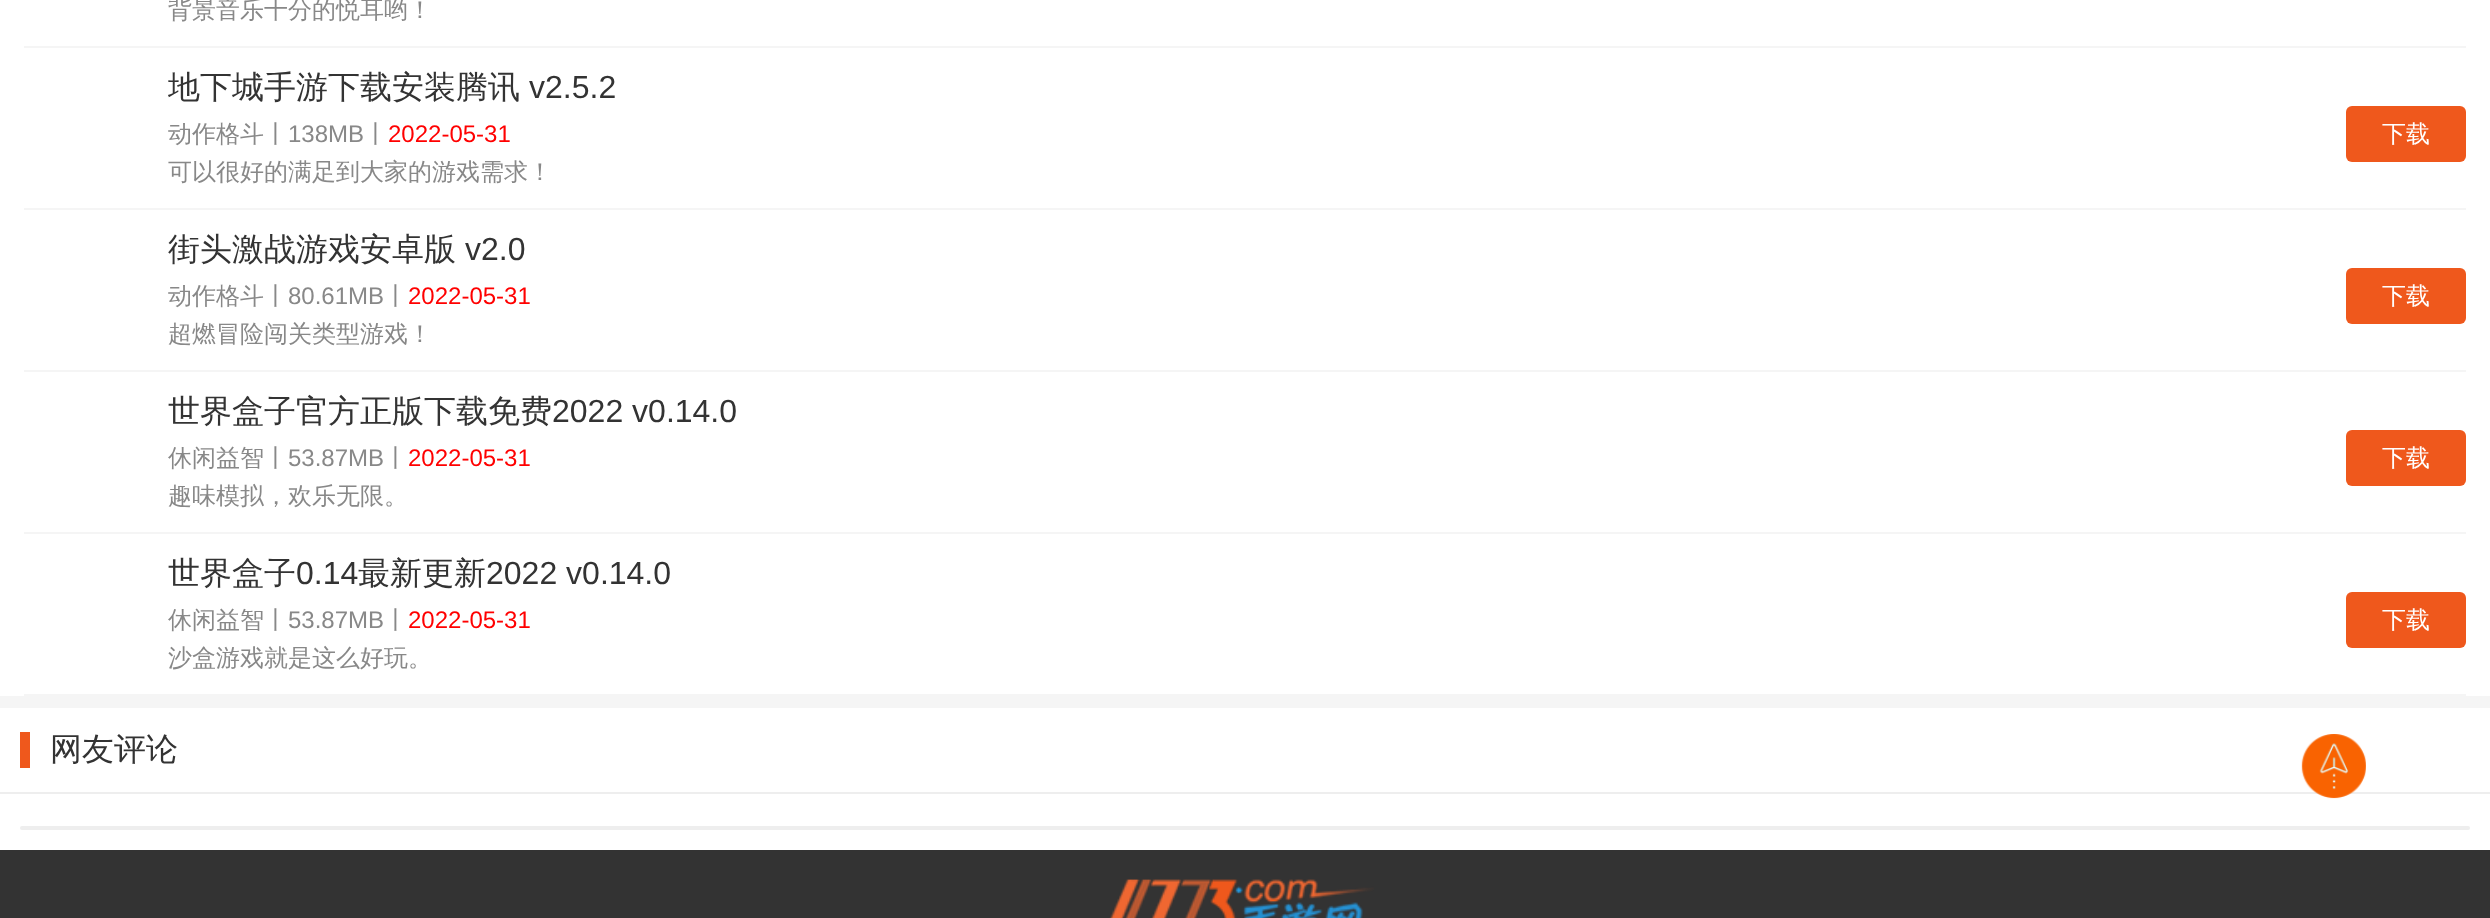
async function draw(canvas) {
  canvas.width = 2490;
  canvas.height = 918;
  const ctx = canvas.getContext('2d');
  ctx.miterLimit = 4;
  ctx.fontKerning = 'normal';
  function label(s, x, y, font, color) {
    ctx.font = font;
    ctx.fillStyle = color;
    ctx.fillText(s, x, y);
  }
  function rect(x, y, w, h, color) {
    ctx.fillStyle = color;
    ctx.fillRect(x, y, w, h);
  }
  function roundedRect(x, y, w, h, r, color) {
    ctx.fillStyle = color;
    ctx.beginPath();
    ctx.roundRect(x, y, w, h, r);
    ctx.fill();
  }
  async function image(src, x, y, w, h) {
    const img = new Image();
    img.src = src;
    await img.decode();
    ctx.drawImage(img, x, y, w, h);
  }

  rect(0, 0, 2490, 918, '#f5f5f5');
  rect(0, 0, 2490, 696, '#fff');
  rect(24, 46, 2442, 2, '#f5f5f5');
  label('背景音乐十分的悦耳哟！', 168, 18, '500 24px WenQuanYi Zen Hei', '#888');
  rect(24, 208, 2442, 2, '#f5f5f5');
  label('地下城手游下载安装腾讯', 168, 98, '500 32px WenQuanYi Zen Hei', '#333');
  label('v2.5.2', 529, 98, '32px Liberation Sans', '#333');
  label('动作格斗丨', 168, 142, '500 24px WenQuanYi Zen Hei', '#888');
  label('138MB', 288, 142, '24px Liberation Sans', '#888');
  label('丨', 364, 142, '500 24px WenQuanYi Zen Hei', '#888');
  label('2022-05-31', 388, 142, '24px Liberation Sans', '#f00');
  label('可以很好的满足到大家的游戏需求！', 168, 180, '500 24px WenQuanYi Zen Hei', '#888');
  roundedRect(2346, 106, 120, 56, 6, '#ef581c');
  label('下载', 2382, 142, '500 24px WenQuanYi Zen Hei', '#fff');
  rect(24, 370, 2442, 2, '#f5f5f5');
  label('街头激战游戏安卓版', 168, 260, '500 32px WenQuanYi Zen Hei', '#333');
  label('v2.0', 465, 260, '32px Liberation Sans', '#333');
  label('动作格斗丨', 168, 304, '500 24px WenQuanYi Zen Hei', '#888');
  label('80.61MB', 288, 304, '24px Liberation Sans', '#888');
  label('丨', 384, 304, '500 24px WenQuanYi Zen Hei', '#888');
  label('2022-05-31', 408, 304, '24px Liberation Sans', '#f00');
  label('超燃冒险闯关类型游戏！', 168, 342, '500 24px WenQuanYi Zen Hei', '#888');
  roundedRect(2346, 268, 120, 56, 6, '#ef581c');
  label('下载', 2382, 304, '500 24px WenQuanYi Zen Hei', '#fff');
  rect(24, 532, 2442, 2, '#f5f5f5');
  label('世界盒子官方正版下载免费', 168, 422, '500 32px WenQuanYi Zen Hei', '#333');
  label('2022 v0.14.0', 552, 422, '32px Liberation Sans', '#333');
  label('休闲益智丨', 168, 466, '500 24px WenQuanYi Zen Hei', '#888');
  label('53.87MB', 288, 466, '24px Liberation Sans', '#888');
  label('丨', 384, 466, '500 24px WenQuanYi Zen Hei', '#888');
  label('2022-05-31', 408, 466, '24px Liberation Sans', '#f00');
  label('趣味模拟，欢乐无限。', 168, 504, '500 24px WenQuanYi Zen Hei', '#888');
  roundedRect(2346, 430, 120, 56, 6, '#ef581c');
  label('下载', 2382, 466, '500 24px WenQuanYi Zen Hei', '#fff');
  rect(24, 694, 2442, 2, '#f5f5f5');
  label('世界盒子', 168, 584, '500 32px WenQuanYi Zen Hei', '#333');
  label('0.14', 296, 584, '32px Liberation Sans', '#333');
  label('最新更新', 358, 584, '500 32px WenQuanYi Zen Hei', '#333');
  label('2022 v0.14.0', 486, 584, '32px Liberation Sans', '#333');
  label('休闲益智丨', 168, 628, '500 24px WenQuanYi Zen Hei', '#888');
  label('53.87MB', 288, 628, '24px Liberation Sans', '#888');
  label('丨', 384, 628, '500 24px WenQuanYi Zen Hei', '#888');
  label('2022-05-31', 408, 628, '24px Liberation Sans', '#f00');
  label('沙盒游戏就是这么好玩。', 168, 666, '500 24px WenQuanYi Zen Hei', '#888');
  roundedRect(2346, 592, 120, 56, 6, '#ef581c');
  label('下载', 2382, 628, '500 24px WenQuanYi Zen Hei', '#fff');
  rect(0, 708, 2490, 142, '#fff');
  rect(0, 792, 2490, 2, '#eee');
  rect(20, 732, 10, 36, '#ef581c');
  label('网友评论', 50, 760, '500 32px WenQuanYi Zen Hei', '#333');
  roundedRect(20, 826, 2450, 4, 2, '#eee');
  await image('assets/img1.png', 2301, 734, 65, 65);
  rect(0, 850, 2490, 68, '#333');
  await image('assets/img2.png', 1109, 879, 265, 39);
}

draw(document.querySelector('canvas'));
